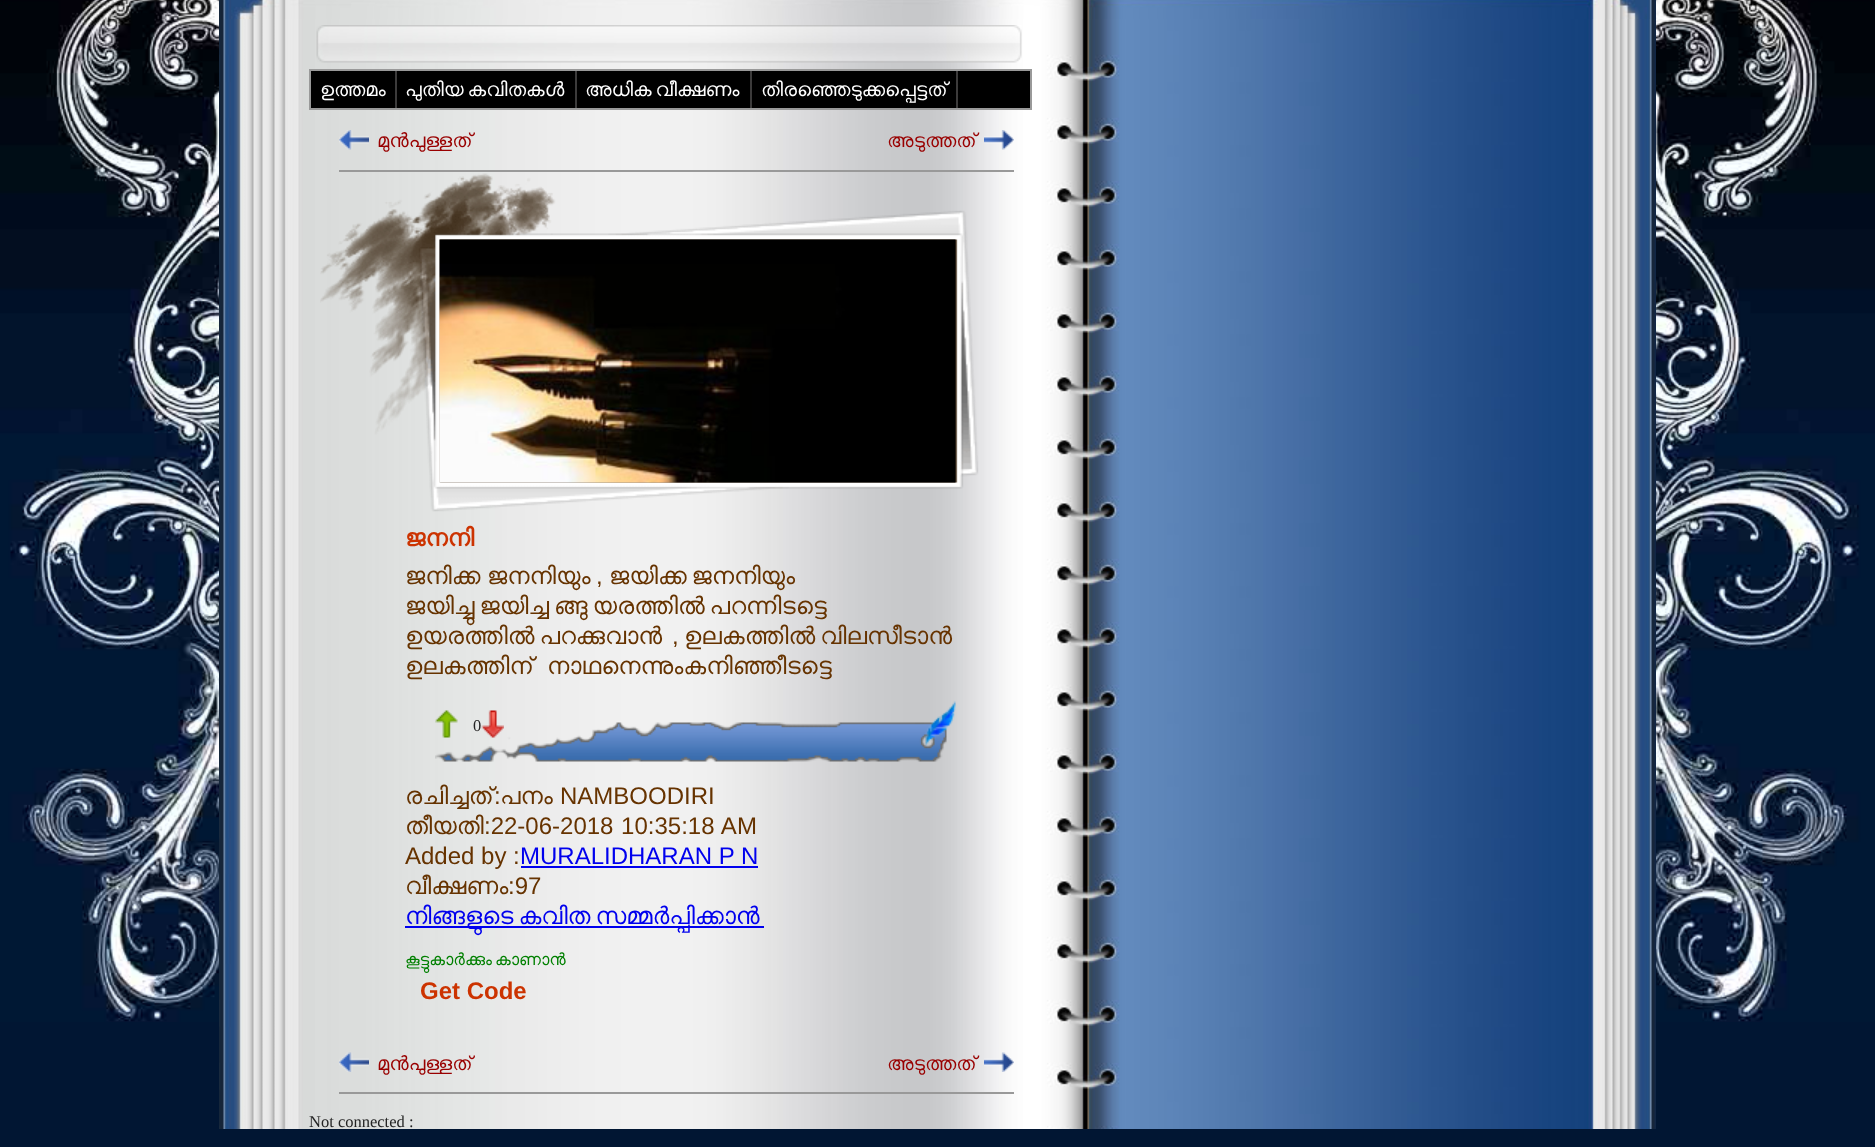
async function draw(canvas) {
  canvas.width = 1875;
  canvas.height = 1147;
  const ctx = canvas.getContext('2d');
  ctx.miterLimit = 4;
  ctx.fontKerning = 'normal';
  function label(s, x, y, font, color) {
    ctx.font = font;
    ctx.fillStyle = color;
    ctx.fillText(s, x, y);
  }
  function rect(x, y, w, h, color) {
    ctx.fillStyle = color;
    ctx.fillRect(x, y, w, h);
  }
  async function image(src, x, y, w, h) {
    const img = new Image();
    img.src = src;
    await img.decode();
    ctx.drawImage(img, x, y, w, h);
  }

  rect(0, 0, 1875, 1147, '#011633');
  await image('assets/img1.png', 0, 0, 1875, 1022);
  await image('assets/img2.png', 219, 0, 1437, 19);
  await image('assets/img3.png', 219, 19, 1437, 1110);
  await image('assets/img4.png', 316, 25, 706, 38);
  ctx.fillStyle = '#000';
  ctx.beginPath();
  ctx.rect(310, 70, 721, 39);
  ctx.fill();
  ctx.strokeStyle = '#999';
  ctx.lineWidth = 2;
  ctx.stroke();
  rect(395, 71, 2, 37, '#3c3b3b');
  label('ഉത്തമം', 320, 96, '19.5px FreeSans', '#fff');
  rect(575, 71, 2, 37, '#3c3b3b');
  ctx.wordSpacing = '-1px';
  label('പുതിയ കവിതകള്‍', 405, 96, '19.5px FreeSans', '#fff');
  rect(750, 71, 2, 37, '#3c3b3b');
  label('അധിക വീക്ഷണം', 585, 96, '19.5px FreeSans', '#fff');
  rect(956, 71, 2, 37, '#3c3b3b');
  ctx.wordSpacing = '0px';
  label('തിരഞ്ഞെടുക്കപ്പെട്ടത്', 761, 96, '19.5px FreeSans', '#fff');
  rect(339, 170, 675, 2, '#999');
  await image('assets/img5.png', 339, 130, 30, 20);
  label('മുന്‍പുള്ളത്', 377, 147, '19.5px FreeSans', '#900');
  await image('assets/img6.png', 984, 130, 30, 20);
  label('അടുത്തത്', 887, 147, '19.5px FreeSans', '#900');
  await image('assets/img7.png', 320, 173, 659, 339);
  await image('assets/img8.png', 439, 239, 517, 244);
  label('ജനനി', 405, 546, 'bold 24px FreeSans', '#c30');
  label('ജനിക്ക', 405, 584, '24px FreeSans', '#630');
  label('ജനനിയും', 487, 584, '24px FreeSans', '#630');
  label(',', 596, 584, '24px Liberation Sans', '#630');
  ctx.wordSpacing = '-1px';
  label('ജയിക്ക ജനനിയും', 609, 584, '24px FreeSans', '#630');
  label('ജയിച്ചു ജയിച്ച ങ്ങു യരത്തിൽ പറന്നിടട്ടെ', 405, 614, '24px FreeSans', '#630');
  label('ഉയരത്തിൽ പറക്കുവാൻ', 405, 644, '24px FreeSans', '#630');
  ctx.wordSpacing = '0px';
  label(',', 672, 644, '24px Liberation Sans', '#630');
  ctx.wordSpacing = '-1px';
  label('ഉലകത്തിൽ വിലസീടാൻ', 684, 644, '24px FreeSans', '#630');
  ctx.wordSpacing = '0px';
  label('ഉലകത്തിന്', 405, 674, '24px FreeSans', '#630');
  label('നാഥനെന്നുംകനിഞ്ഞീടട്ടെ', 547, 674, '24px FreeSans', '#630');
  await image('assets/img9.png', 435, 700, 521, 62);
  await image('assets/img10.png', 435, 710, 23, 28);
  label('0', 473, 731, '16.5px Liberation Serif', '#232323');
  await image('assets/img11.png', 481, 710, 23, 28);
  label('രചിച്ചത്', 405, 804, '24px FreeSans', '#630');
  label(':', 494, 804, '24px Liberation Sans', '#630');
  label('പനം', 500, 804, '24px FreeSans', '#630');
  label('NAMBOODIRI', 560, 804, '24px Liberation Sans', '#630');
  label('തീയതി', 405, 834, '24px FreeSans', '#630');
  ctx.wordSpacing = '1px';
  label(':22-06-2018 10:35:18 AM', 484, 834, '24px Liberation Sans', '#630');
  ctx.wordSpacing = '0px';
  label('Added by :', 405, 864, '24px Liberation Sans', '#630');
  label('MURALIDHARAN P N', 520, 864, '24px Liberation Sans', '#00e');
  rect(521, 866, 237, 2, '#00e');
  label('വീക്ഷണം', 405, 894, '24px FreeSans', '#630');
  label(':97', 508, 894, '24px Liberation Sans', '#630');
  rect(405, 926, 359, 2, '#00e');
  ctx.wordSpacing = '-1px';
  label('നിങ്ങളുടെ കവിത സമ്മര്‍പ്പിക്കാന്‍', 405, 924, '24px FreeSans', '#00e');
  label('കൂട്ടുകാര്‍ക്കും കാണാന്‍', 405, 965, '16.5px FreeSans', '#008000');
  ctx.wordSpacing = '0px';
  label('Get Code', 420, 999, 'bold 24px Liberation Sans', '#c30');
  rect(339, 1092, 675, 2, '#999');
  await image('assets/img12.png', 339, 1052, 30, 20);
  label('മുന്‍പുള്ളത്', 377, 1070, '19.5px FreeSans', '#900');
  await image('assets/img13.png', 984, 1052, 30, 20);
  label('അടുത്തത്', 887, 1070, '19.5px FreeSans', '#900');
  label('Not connected :', 309, 1127, '16.5px Liberation Serif', '#232323');
}

draw(document.querySelector('canvas'));
